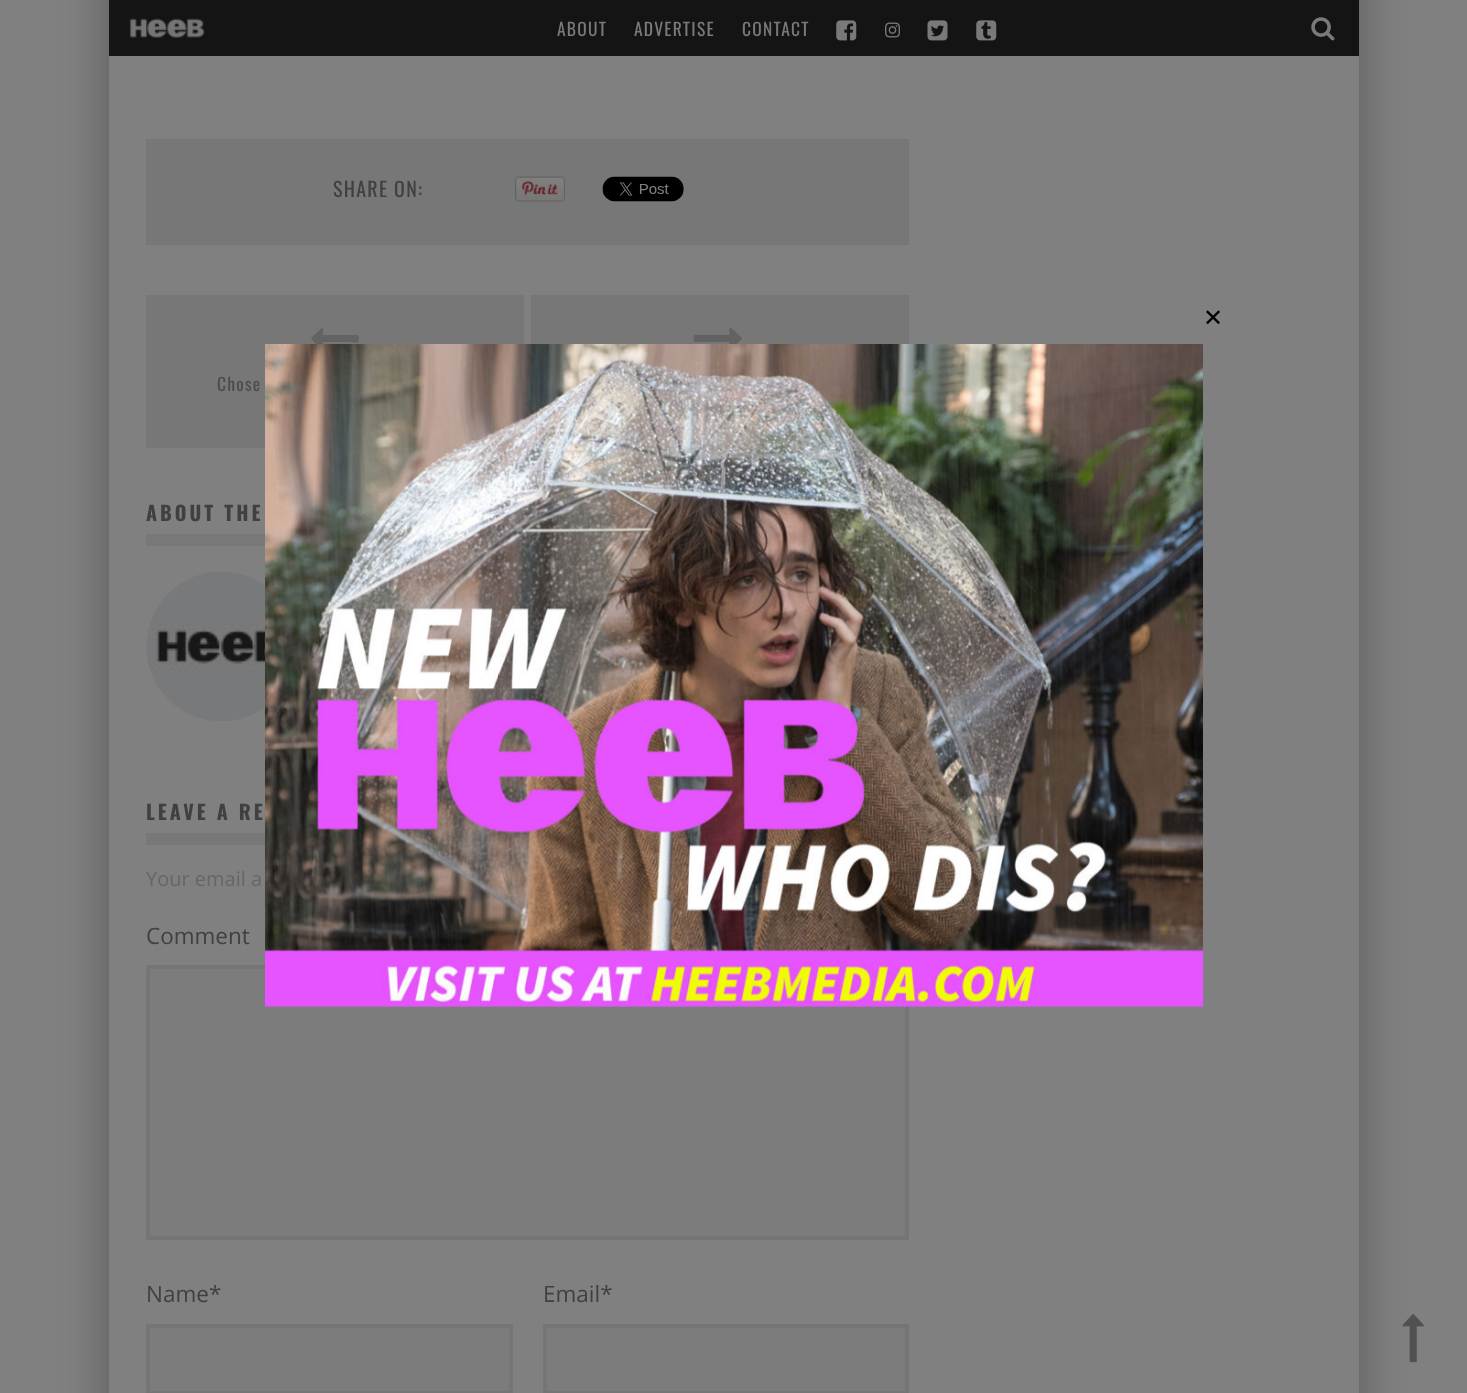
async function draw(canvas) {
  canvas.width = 1467;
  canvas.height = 1393;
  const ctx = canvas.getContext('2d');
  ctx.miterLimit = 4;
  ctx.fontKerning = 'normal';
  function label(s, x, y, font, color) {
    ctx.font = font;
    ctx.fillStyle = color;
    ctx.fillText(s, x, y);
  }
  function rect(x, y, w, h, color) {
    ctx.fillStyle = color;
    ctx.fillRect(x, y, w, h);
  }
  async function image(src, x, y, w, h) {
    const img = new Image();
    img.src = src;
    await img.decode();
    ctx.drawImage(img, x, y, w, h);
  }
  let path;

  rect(0, 0, 1467, 1393, '#808080');
  ctx.fillStyle = '#00000026';
  ctx.filter = 'blur(19px)';
  ctx.beginPath();
  ctx.rect(96, -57, 1250, 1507);
  ctx.fill();
  ctx.filter = 'none';
  ctx.filter = 'blur(19px)';
  ctx.beginPath();
  ctx.rect(121, -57, 1250, 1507);
  ctx.fill();
  ctx.filter = 'none';
  rect(109, 0, 1250, 1393, '#808080');
  rect(109, 0, 1250, 56, '#0e0e0ef2');
  await image('assets/img1.png', 129, 18, 76, 20);
  ctx.letterSpacing = '1.25px';
  label('ABOUT', 557, 36, '17.5px Oswald', '#797979');
  label('ADVERTISE', 634, 36, '17.5px Oswald', '#797979');
  label('CONTACT', 742, 36, '17.5px Oswald', '#797979');
  await image('assets/img2.png', 836, 20, 21, 21);
  await image('assets/img3.png', 885, 22, 15, 16);
  await image('assets/img4.png', 927, 20, 21, 21);
  await image('assets/img5.png', 976, 20, 21, 21);
  await image('assets/img6.png', 1311, 17, 24, 24);
  await image('assets/img7.png', 1402, 1314, 22, 49);
  rect(146, 139, 763, 106, '#777');
  label('SHARE ON:', 333, 197, '20px Oswald', '#404040');
  await image('assets/img8.png', 515, 176, 50, 26);
  await image('assets/img9.png', 602, 176, 82, 26);
  rect(146, 295, 763, 153, '#777');
  await image('assets/img10.png', 693, 327, 49, 17);
  rect(524, 295, 7, 49, '#808080');
  ctx.fillStyle = '#636363';
  path = new Path2D('M359 336C359 345 359 342 346 342H323C323 343 324 348 323 349C321 350 311 339 311 338L322 328C324 327 323 334 323 335H358Z');
  ctx.fill(path);
  label('Chose', 217, 391, '17.5px Oswald', '#4d4d4d');
  rect(146, 534, 119, 12, '#787878');
  ctx.letterSpacing = '3px';
  label('ABOUT THE', 146, 521, 'bold 20px Oswald', '#404040');
  await image('assets/img11.png', 146, 572, 119, 149);
  rect(146, 833, 119, 12, '#787878');
  label('LEAVE A RE', 146, 820, 'bold 20px Oswald', '#404040');
  ctx.letterSpacing = '0px';
  label('Your email a', 146, 886, '20px Open Sans', '#666');
  label('Comment', 146, 944, '22.5px Open Sans', '#404040');
  ctx.fillStyle = '#7c7c7c';
  ctx.beginPath();
  ctx.rect(148, 967, 759, 271);
  ctx.fill();
  ctx.strokeStyle = '#757575';
  ctx.lineWidth = 4;
  ctx.stroke();
  label('Name*', 146, 1302, '22.5px Open Sans', '#404040');
  ctx.fillStyle = '#7c7c7c';
  ctx.beginPath();
  ctx.rect(148, 1326, 363, 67);
  ctx.fill();
  ctx.stroke();
  label('Email*', 543, 1302, '22.5px Open Sans', '#404040');
  ctx.fillStyle = '#7c7c7c';
  ctx.beginPath();
  ctx.rect(545, 1326, 362, 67);
  ctx.fill();
  ctx.stroke();
  label('✕', 1203, 326, '24px DejaVu Sans', '#000');
  await image('assets/img12.png', 265, 344, 938, 663);
}

draw(document.querySelector('canvas'));
